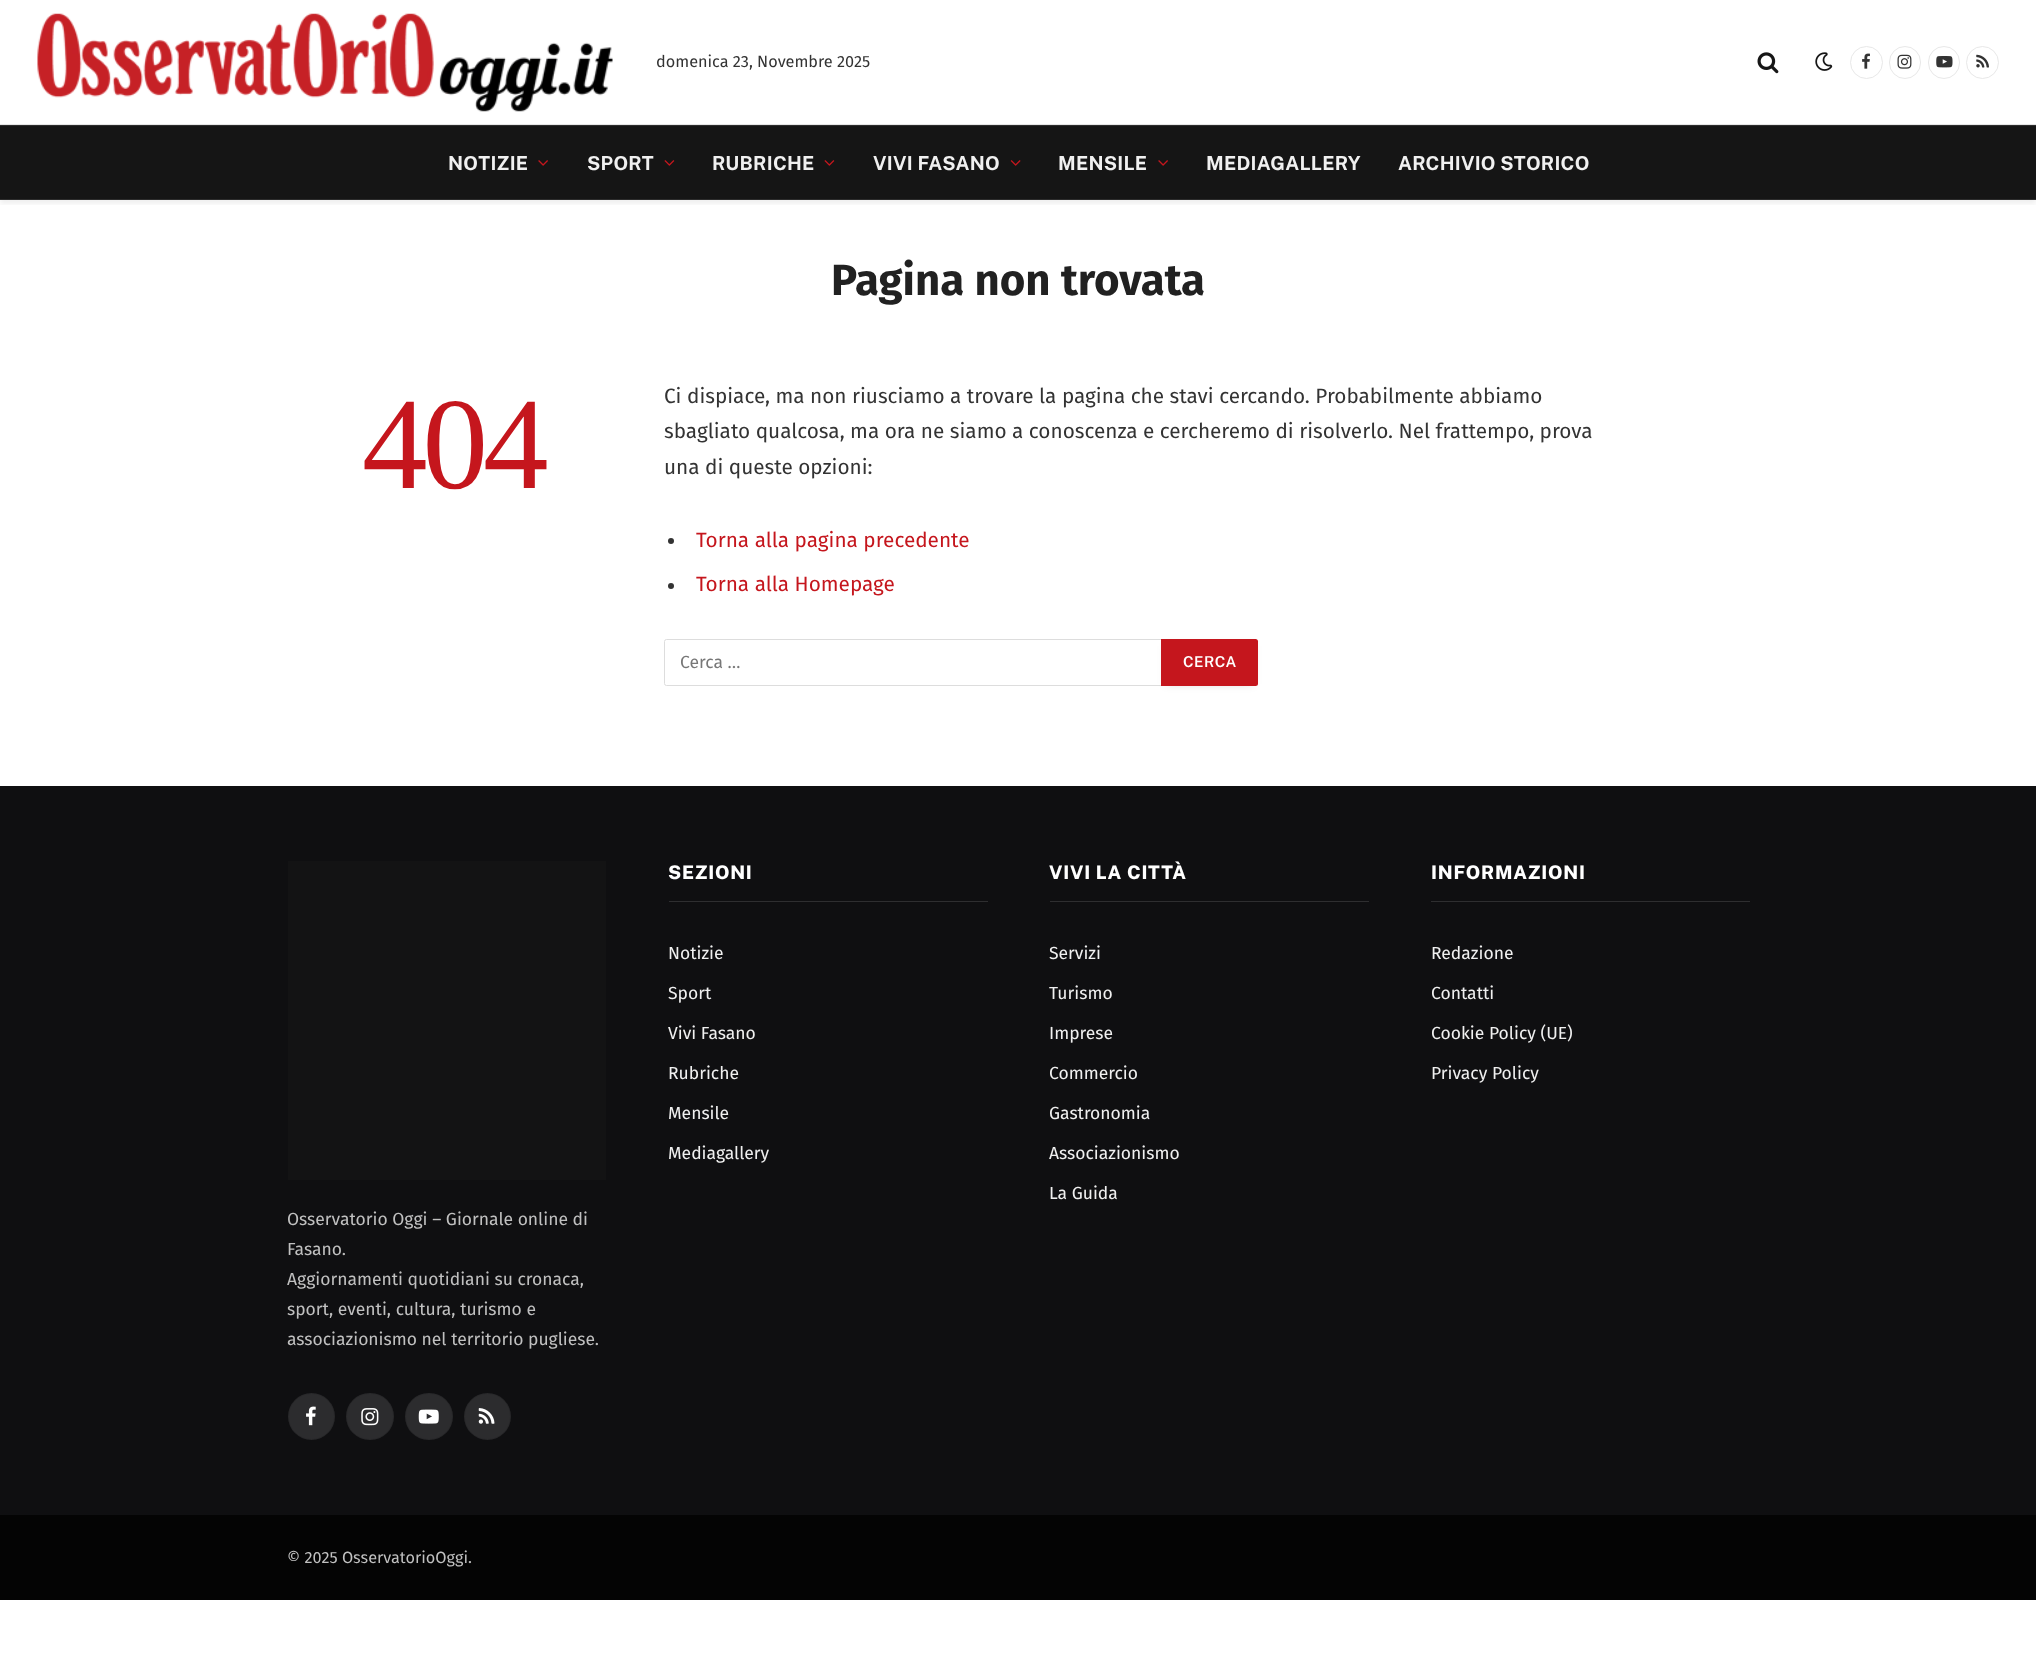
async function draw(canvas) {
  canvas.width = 2036;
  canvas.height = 1677;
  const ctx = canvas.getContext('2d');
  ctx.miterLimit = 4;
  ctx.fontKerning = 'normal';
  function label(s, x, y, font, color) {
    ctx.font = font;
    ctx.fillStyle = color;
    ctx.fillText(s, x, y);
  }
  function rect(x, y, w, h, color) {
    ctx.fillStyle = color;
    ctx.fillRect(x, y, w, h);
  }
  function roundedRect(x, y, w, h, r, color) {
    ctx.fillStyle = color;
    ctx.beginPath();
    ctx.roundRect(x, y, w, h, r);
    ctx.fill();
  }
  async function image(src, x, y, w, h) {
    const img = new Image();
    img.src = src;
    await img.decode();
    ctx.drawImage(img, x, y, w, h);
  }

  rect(0, 0, 2036, 1677, '#fff');
  ctx.save();
  ctx.beginPath();
  ctx.rect(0, 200, 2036, 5);
  ctx.clip();
  ctx.fillStyle = '#0000000f';
  ctx.filter = 'blur(2.5px)';
  ctx.beginPath();
  ctx.rect(0, 4, 2036, 200);
  ctx.fill();
  ctx.filter = 'none';
  ctx.restore();
  rect(0, 124, 2036, 1, '#e5e5e5');
  await image('assets/img1.png', 37, 13, 576, 99);
  label('domenica 23, Novembre 2025', 656, 67, '16.25px Fira Sans', '#333');
  await image('assets/img2.png', 1757, 52, 22, 22);
  await image('assets/img3.png', 1815, 52, 18, 19);
  ctx.beginPath();
  ctx.arc(1866.5, 62.5, 16, 0, 2 * Math.PI);
  ctx.strokeStyle = '#e8e8e8';
  ctx.stroke();
  await image('assets/img4.png', 1862, 53, 8, 16);
  ctx.beginPath();
  ctx.roundRect(1889.5, 46.5, 31, 32, 15.5);
  ctx.stroke();
  await image('assets/img5.png', 1897, 54, 15, 15);
  ctx.beginPath();
  ctx.roundRect(1928.5, 46.5, 31, 32, 15.5);
  ctx.stroke();
  await image('assets/img6.png', 1936, 56, 17, 12);
  ctx.beginPath();
  ctx.arc(1982.5, 62.5, 16, 0, 2 * Math.PI);
  ctx.stroke();
  await image('assets/img7.png', 1976, 54, 13, 14);
  rect(0, 126, 2036, 73, '#151515');
  rect(0, 125, 2036, 1, '#2c2c2c');
  rect(0, 199, 2036, 1, '#2c2c2c');
  ctx.letterSpacing = '0.25px';
  label('NOTIZIE', 448, 170, 'bold 19.25px Public Sans', '#f0f0f0');
  await image('assets/img8.png', 538, 160, 10, 6);
  label('SPORT', 587, 170, 'bold 19.25px Public Sans', '#f0f0f0');
  await image('assets/img9.png', 664, 160, 11, 6);
  label('RUBRICHE', 712, 170, 'bold 19.25px Public Sans', '#f0f0f0');
  await image('assets/img9.png', 824, 160, 11, 6);
  label('VIVI FASANO', 873, 170, 'bold 19.25px Public Sans', '#f0f0f0');
  await image('assets/img10.png', 1010, 160, 11, 6);
  label('MENSILE', 1058, 170, 'bold 19.25px Public Sans', '#f0f0f0');
  await image('assets/img8.png', 1158, 160, 10, 6);
  label('MEDIAGALLERY', 1206, 170, 'bold 19.25px Public Sans', '#f0f0f0');
  label('ARCHIVIO STORICO', 1398, 170, 'bold 19.25px Public Sans', '#f0f0f0');
  ctx.letterSpacing = '0px';
  label('Pagina non trovata', 831, 295, 'bold 43.75px Fira Sans', '#212121');
  ctx.letterSpacing = '-5px';
  label('404', 362, 488, '131px Liberation Serif', '#c5161d');
  ctx.letterSpacing = '0px';
  label('Ci dispiace, ma non riusciamo a trovare la pagina che stavi cercando. Probabilmente abbiamo', 664, 403, '20.75px Fira Sans', '#333');
  label('sbagliato qualcosa, ma ora ne siamo a conoscenza e cercheremo di risolverlo. Nel frattempo, prova', 664, 438, '20.75px Fira Sans', '#333');
  label('una di queste opzioni:', 664, 474, '20.75px Fira Sans', '#333');
  ctx.beginPath();
  ctx.arc(671, 541, 3, 0, 2 * Math.PI);
  ctx.fill();
  label('Torna alla pagina precedente', 696, 547, '20.75px Fira Sans', '#c5161d');
  ctx.fillStyle = '#333';
  ctx.beginPath();
  ctx.arc(671, 586, 3, 0, 2 * Math.PI);
  ctx.fill();
  label('Torna alla Homepage', 696, 591, '20.75px Fira Sans', '#c5161d');
  ctx.beginPath();
  ctx.roundRect(664.5, 639.5, 499, 46, 2);
  ctx.strokeStyle = '#ddd';
  ctx.stroke();
  label('Cerca …', 680, 668, '17.5px Fira Sans', '#777');
  ctx.fillStyle = '#00000029';
  ctx.filter = 'blur(4.5px)';
  ctx.beginPath();
  ctx.rect(1166, 646, 87, 38);
  ctx.fill();
  ctx.filter = 'none';
  ctx.fillStyle = '#c5161d';
  ctx.beginPath();
  ctx.roundRect(1161, 639, 97, 47, [0, 2.5, 2.5, 0]);
  ctx.fill();
  ctx.letterSpacing = '0.5px';
  label('CERCA', 1183, 667, '600 15px Public Sans', '#fff');
  rect(0, 786, 2036, 729, '#0f0f11');
  rect(669, 901, 319, 1, '#2e2e30');
  ctx.letterSpacing = '0.75px';
  label('SEZIONI', 668, 879, '800 18.75px Public Sans', '#fff');
  ctx.letterSpacing = '0px';
  label('Notizie', 668, 959, '17.5px Fira Sans', '#f0f0f0');
  label('Sport', 668, 999, '17.5px Fira Sans', '#f0f0f0');
  label('Vivi Fasano', 668, 1039, '17.5px Fira Sans', '#f0f0f0');
  label('Rubriche', 668, 1079, '17.5px Fira Sans', '#f0f0f0');
  label('Mensile', 668, 1119, '17.5px Fira Sans', '#f0f0f0');
  label('Mediagallery', 668, 1159, '17.5px Fira Sans', '#f0f0f0');
  rect(1050, 901, 319, 1, '#2e2e30');
  ctx.letterSpacing = '0.75px';
  label('VIVI LA CITTÀ', 1049, 879, '800 18.75px Public Sans', '#fff');
  ctx.letterSpacing = '0px';
  label('Servizi', 1049, 959, '17.5px Fira Sans', '#f0f0f0');
  label('Turismo', 1049, 999, '17.5px Fira Sans', '#f0f0f0');
  label('Imprese', 1049, 1039, '17.5px Fira Sans', '#f0f0f0');
  label('Commercio', 1049, 1079, '17.5px Fira Sans', '#f0f0f0');
  label('Gastronomia', 1049, 1119, '17.5px Fira Sans', '#f0f0f0');
  label('Associazionismo', 1049, 1159, '17.5px Fira Sans', '#f0f0f0');
  label('La Guida', 1049, 1199, '17.5px Fira Sans', '#f0f0f0');
  rect(1431, 901, 319, 1, '#2e2e30');
  ctx.letterSpacing = '0.75px';
  label('INFORMAZIONI', 1431, 879, '800 18.75px Public Sans', '#fff');
  ctx.letterSpacing = '0px';
  label('Redazione', 1431, 959, '17.5px Fira Sans', '#f0f0f0');
  label('Contatti', 1431, 999, '17.5px Fira Sans', '#f0f0f0');
  label('Cookie Policy (UE)', 1431, 1039, '17.5px Fira Sans', '#f0f0f0');
  label('Privacy Policy', 1431, 1079, '17.5px Fira Sans', '#f0f0f0');
  rect(288, 861, 318, 319, '#131314');
  label('Osservatorio Oggi – Giornale online di', 287, 1225, '17.5px Fira Sans', '#c0c0c0');
  label('Fasano.', 287, 1255, '17.5px Fira Sans', '#c0c0c0');
  label('Aggiornamenti quotidiani su cronaca,', 287, 1285, '17.5px Fira Sans', '#c0c0c0');
  label('sport, eventi, cultura, turismo e', 287, 1315, '17.5px Fira Sans', '#c0c0c0');
  label('associazionismo nel territorio pugliese.', 287, 1345, '17.5px Fira Sans', '#c0c0c0');
  ctx.fillStyle = '#2c2c2e';
  ctx.beginPath();
  ctx.arc(311.5, 1416.5, 23.5, 0, 2 * Math.PI);
  ctx.fill();
  ctx.beginPath();
  ctx.arc(311.5, 1416.5, 23, 0, 2 * Math.PI);
  ctx.strokeStyle = '#00000017';
  ctx.stroke();
  await image('assets/img11.png', 306, 1406, 10, 20);
  roundedRect(346, 1393, 48, 47, 23.5, '#2c2c2e');
  ctx.beginPath();
  ctx.roundRect(346.5, 1393.5, 47, 46, 23);
  ctx.stroke();
  await image('assets/img12.png', 361, 1408, 18, 18);
  roundedRect(405, 1393, 48, 47, 23.5, '#2c2c2e');
  ctx.beginPath();
  ctx.roundRect(405.5, 1393.5, 47, 46, 23);
  ctx.stroke();
  await image('assets/img13.png', 418, 1409, 21, 15);
  ctx.beginPath();
  ctx.arc(487.5, 1416.5, 23.5, 0, 2 * Math.PI);
  ctx.fill();
  ctx.beginPath();
  ctx.arc(487.5, 1416.5, 23, 0, 2 * Math.PI);
  ctx.stroke();
  await image('assets/img14.png', 478, 1408, 17, 16);
  rect(0, 1515, 2036, 85, '#040404');
  label('© 2025 OsservatorioOggi.', 287, 1563, '16.25px Fira Sans', '#c0c0c0');
}

draw(document.querySelector('canvas'));
